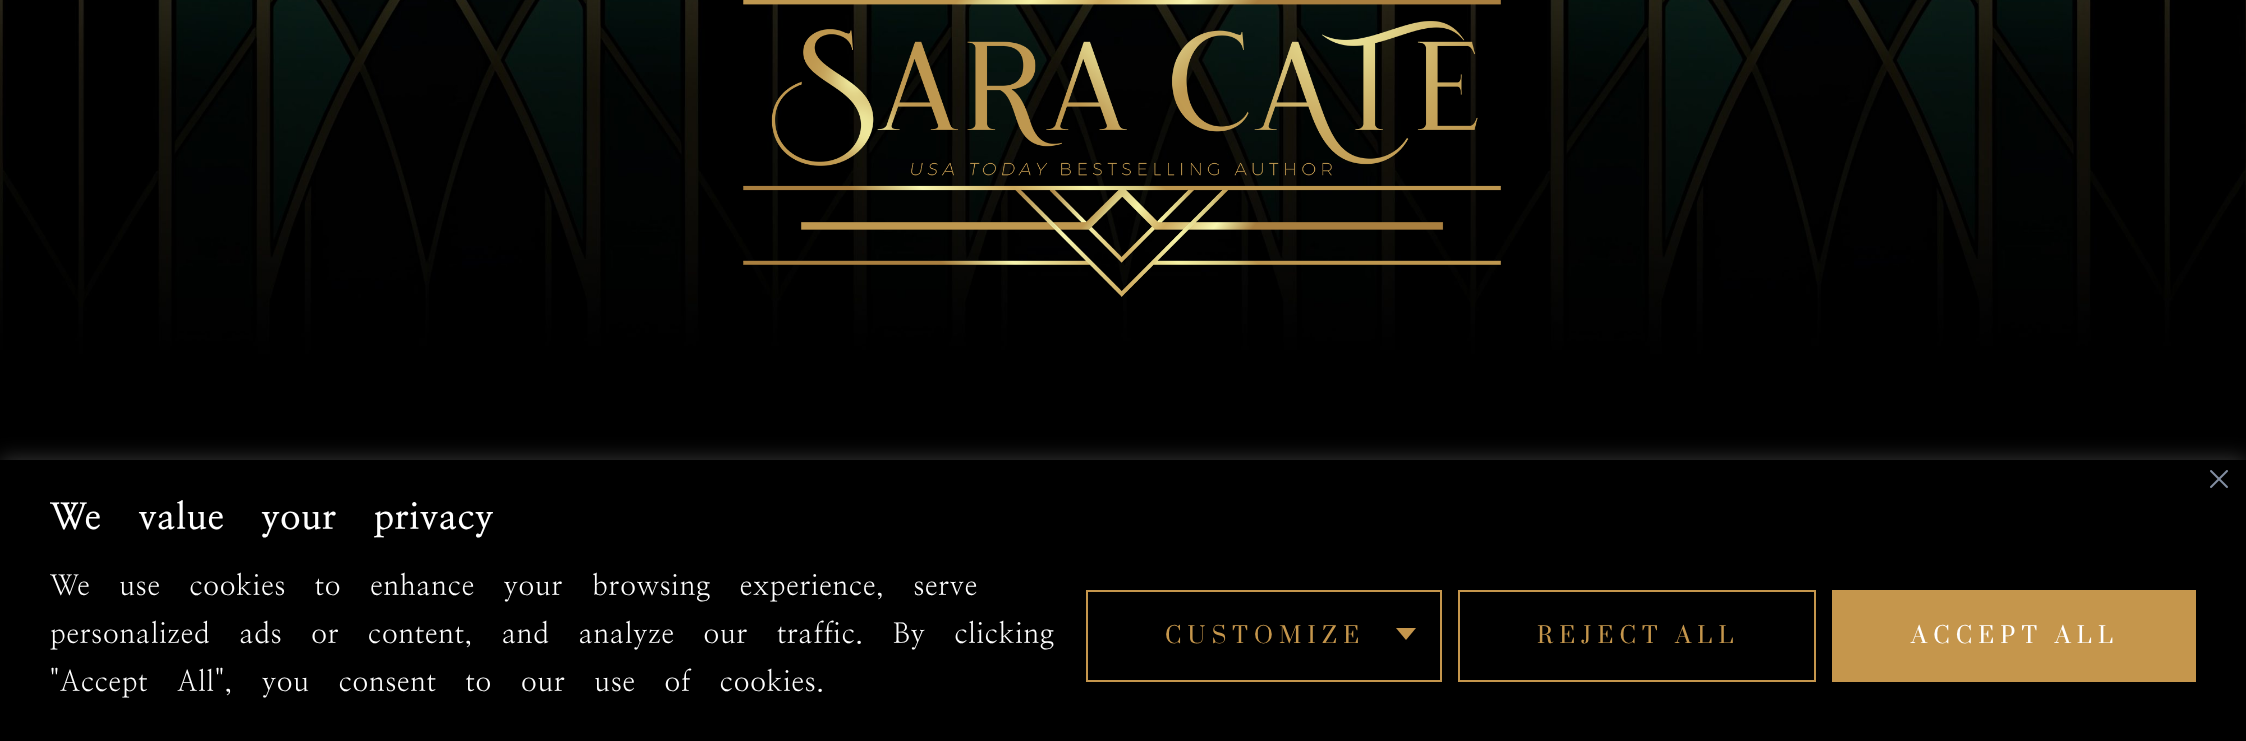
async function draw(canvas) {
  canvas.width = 2246;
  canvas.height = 741;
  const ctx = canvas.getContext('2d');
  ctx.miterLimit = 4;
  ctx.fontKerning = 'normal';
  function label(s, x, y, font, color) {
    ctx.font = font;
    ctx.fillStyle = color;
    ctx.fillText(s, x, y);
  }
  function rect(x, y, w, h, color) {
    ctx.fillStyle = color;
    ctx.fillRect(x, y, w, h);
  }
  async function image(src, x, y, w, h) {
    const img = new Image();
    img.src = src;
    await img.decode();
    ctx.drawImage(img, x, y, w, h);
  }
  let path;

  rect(0, 0, 2246, 741, '#000');
  await image('assets/img1.png', 0, 0, 2246, 412);
  await image('assets/img2.png', 743, 0, 758, 297);
  ctx.fillStyle = '#acabab4d';
  ctx.filter = 'blur(10px)';
  ctx.beginPath();
  ctx.rect(0, 458, 2246, 282);
  ctx.fill();
  ctx.filter = 'none';
  rect(0, 460, 2246, 281, '#000');
  await image('assets/img3.png', 2210, 470, 18, 18);
  ctx.letterSpacing = '0.8px';
  label('We value your privacy', 50, 529, 'bold 36px NanumMyeongjo', '#fff');
  label('We use cookies to enhance your browsing experience, serve', 50, 595, '28px NanumMyeongjo', '#fff');
  label('personalized ads or content, and analyze our traffic. By clicking', 50, 643, '28px NanumMyeongjo', '#fff');
  label('"Accept All", you consent to our use of cookies.', 50, 691, '28px NanumMyeongjo', '#fff');
  ctx.strokeStyle = '#c5964c';
  ctx.lineWidth = 2;
  ctx.strokeRect(1087, 591, 354, 90);
  ctx.letterSpacing = '6.25px';
  label('CUSTOMIZE', 1165, 643, '28px Suranna', '#c5964c');
  path = new Path2D('M1396 628H1416L1406 640Z');
  ctx.fill(path);
  ctx.strokeRect(1459, 591, 356, 90);
  label('REJECT ALL', 1537, 643, '28px Suranna', '#c5964c');
  rect(1832, 590, 364, 92, '#c5964c');
  label('ACCEPT ALL', 1911, 643, '28px Suranna', '#fff');
}

draw(document.querySelector('canvas'));
